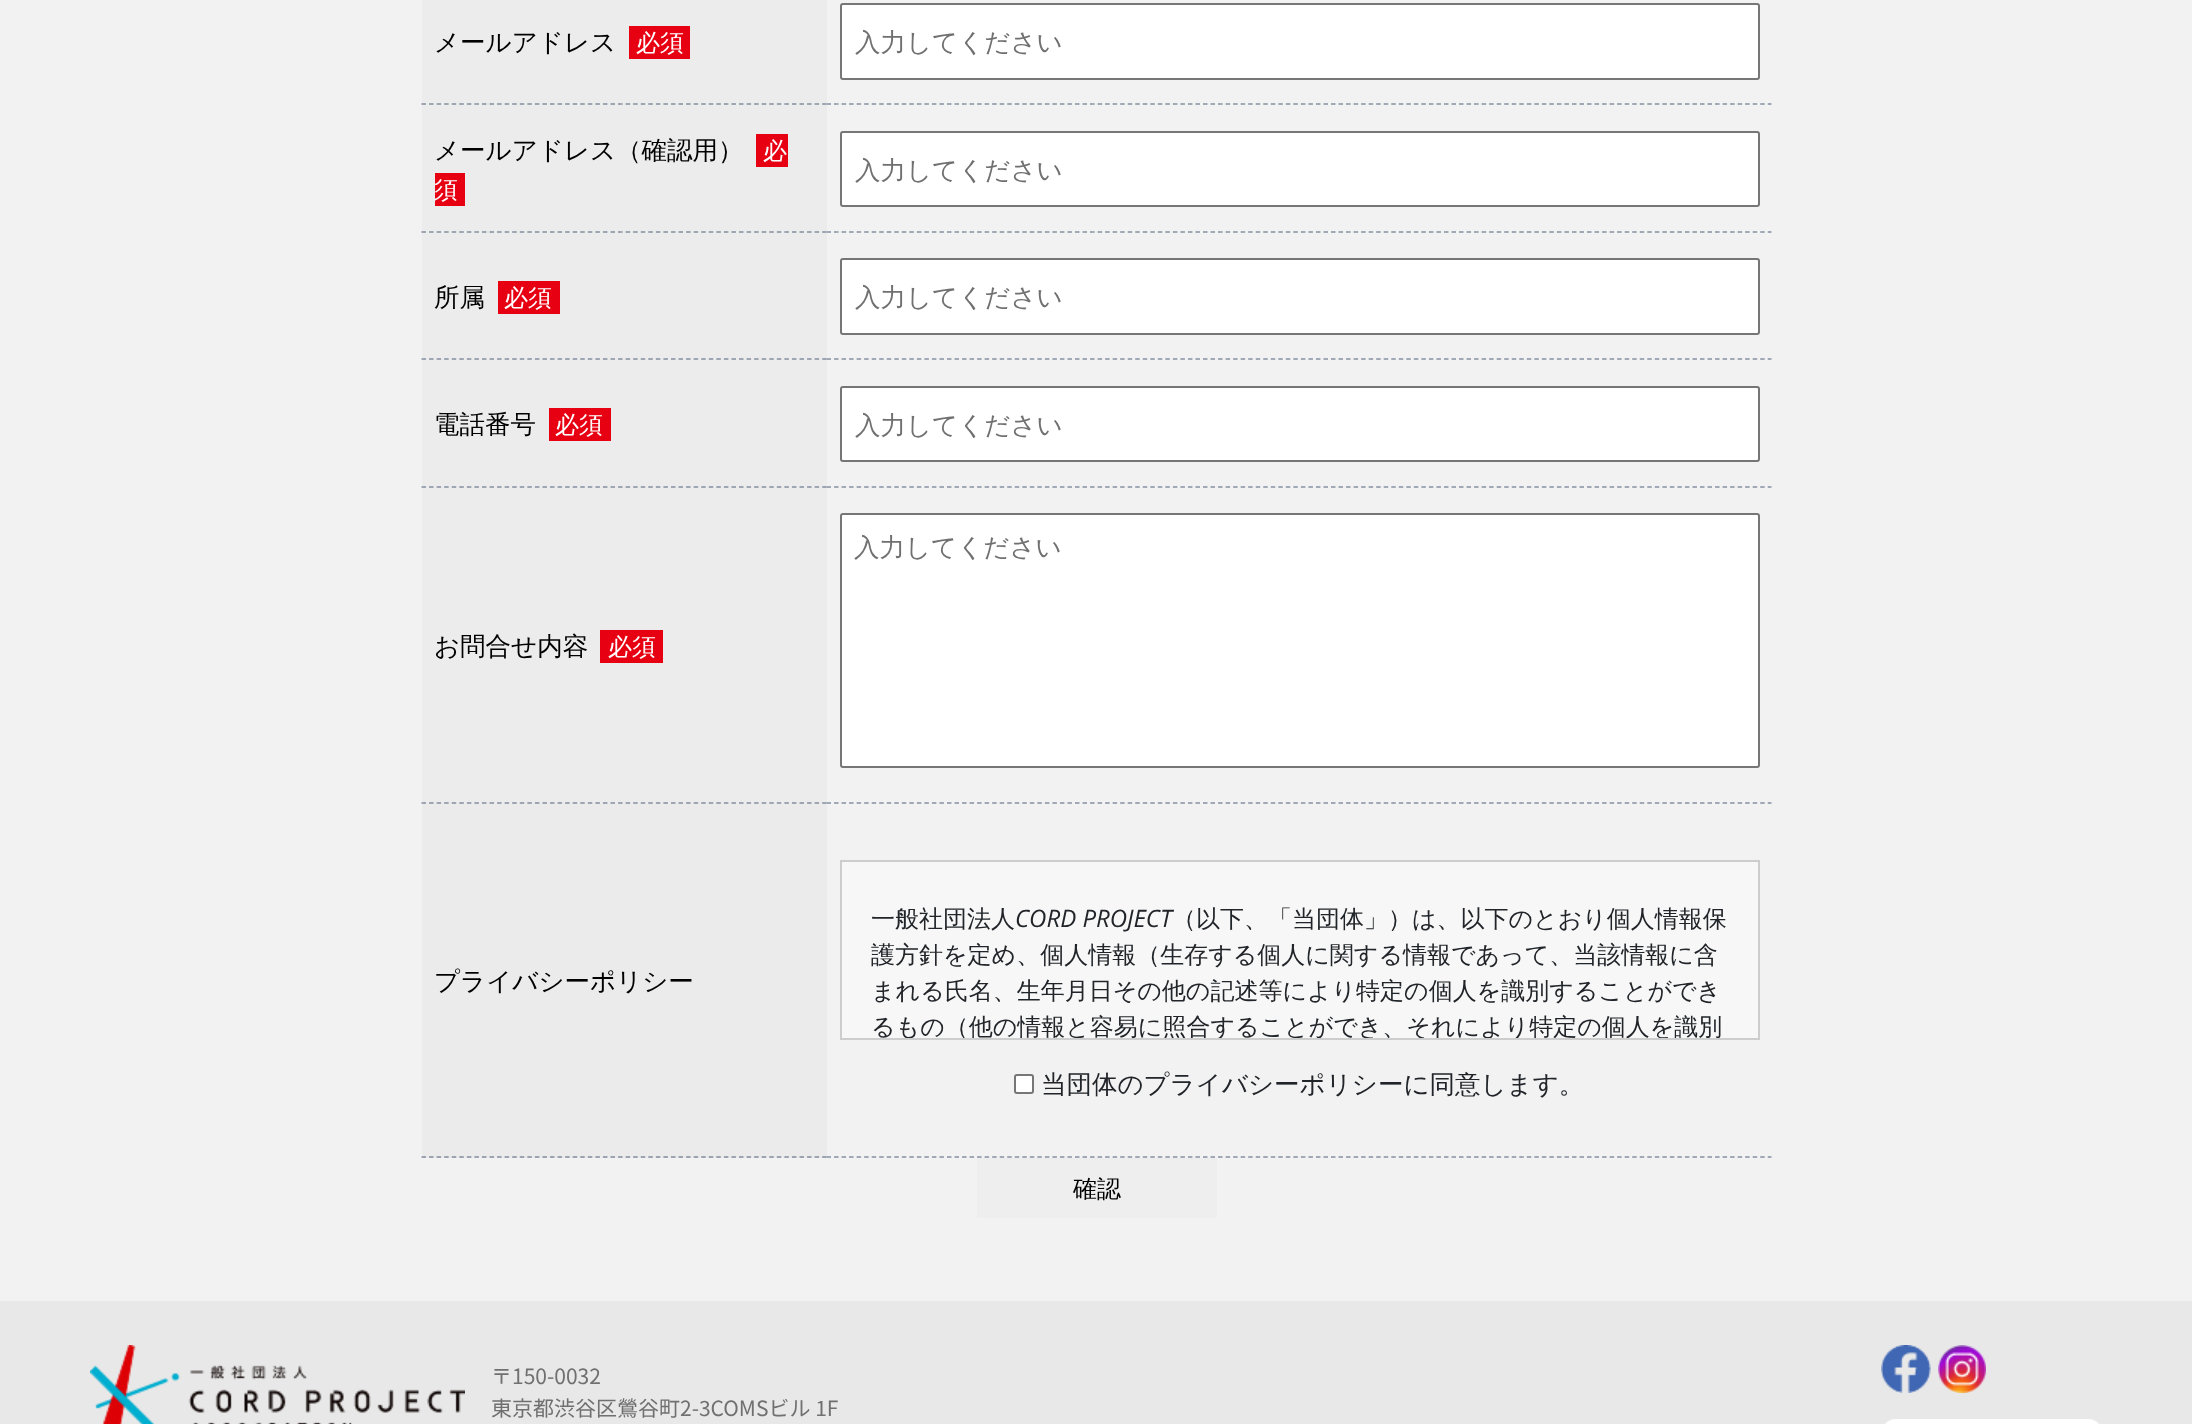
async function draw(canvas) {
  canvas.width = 2192;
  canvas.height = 1424;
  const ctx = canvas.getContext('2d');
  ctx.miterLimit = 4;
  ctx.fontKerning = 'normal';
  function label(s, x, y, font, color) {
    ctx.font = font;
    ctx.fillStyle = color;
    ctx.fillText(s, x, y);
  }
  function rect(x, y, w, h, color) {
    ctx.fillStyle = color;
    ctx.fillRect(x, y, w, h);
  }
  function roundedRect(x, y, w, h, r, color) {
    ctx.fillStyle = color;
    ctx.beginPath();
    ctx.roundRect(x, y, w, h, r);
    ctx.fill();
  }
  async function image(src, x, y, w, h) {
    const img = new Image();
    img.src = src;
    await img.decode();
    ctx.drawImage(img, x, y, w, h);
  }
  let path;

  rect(0, 0, 2192, 1424, '#f2f2f2');
  rect(422, 0, 405, 804, '#ececec');
  label('メールアドレス', 434, 51, '500 25.5px WenQuanYi Zen Hei', '#000');
  rect(629, 26, 61, 33, '#e60012');
  label('必須', 636, 51, '500 24px WenQuanYi Zen Hei', '#fff');
  path = new Path2D('M421.5 104H826.5');
  ctx.strokeStyle = '#848da0';
  ctx.lineWidth = 1.5;
  ctx.setLineDash([4.5, 3.06]);
  ctx.stroke(path);
  ctx.beginPath();
  ctx.roundRect(841, 4, 918, 75, 2);
  ctx.fill();
  ctx.strokeStyle = '#767676';
  ctx.lineWidth = 2;
  ctx.setLineDash([]);
  ctx.stroke();
  label('入力してください', 855, 51, '500 25.5px WenQuanYi Zen Hei', '#707070');
  path = new Path2D('M826.5 104H1771.5');
  ctx.strokeStyle = '#8790a3';
  ctx.lineWidth = 1.5;
  ctx.setLineDash([4.5, 3.03]);
  ctx.stroke(path);
  label('メールアドレス（確認用）', 434, 159, '500 25.5px WenQuanYi Zen Hei', '#000');
  rect(756, 134, 32, 33, '#e60012');
  label('必', 763, 159, '500 24px WenQuanYi Zen Hei', '#fff');
  rect(435, 173, 30, 33, '#e60012');
  label('須', 434, 198, '500 24px WenQuanYi Zen Hei', '#fff');
  path = new Path2D('M421.5 232H826.5');
  ctx.strokeStyle = '#848da0';
  ctx.setLineDash([4.5, 3.06]);
  ctx.stroke(path);
  ctx.beginPath();
  ctx.roundRect(841, 132, 918, 74, 2);
  ctx.fill();
  ctx.strokeStyle = '#767676';
  ctx.lineWidth = 2;
  ctx.setLineDash([]);
  ctx.stroke();
  label('入力してください', 855, 179, '500 25.5px WenQuanYi Zen Hei', '#707070');
  path = new Path2D('M826.5 232H1771.5');
  ctx.strokeStyle = '#8790a3';
  ctx.lineWidth = 1.5;
  ctx.setLineDash([4.5, 3.03]);
  ctx.stroke(path);
  label('所属', 434, 306, '500 25.5px WenQuanYi Zen Hei', '#000');
  rect(498, 281, 62, 33, '#e60012');
  label('必須', 504, 306, '500 24px WenQuanYi Zen Hei', '#fff');
  path = new Path2D('M421.5 359H826.5');
  ctx.strokeStyle = '#848da0';
  ctx.setLineDash([4.5, 3.06]);
  ctx.stroke(path);
  ctx.beginPath();
  ctx.roundRect(841, 259, 918, 75, 2);
  ctx.fill();
  ctx.strokeStyle = '#767676';
  ctx.lineWidth = 2;
  ctx.setLineDash([]);
  ctx.stroke();
  label('入力してください', 855, 306, '500 25.5px WenQuanYi Zen Hei', '#707070');
  path = new Path2D('M826.5 359H1771.5');
  ctx.strokeStyle = '#8790a3';
  ctx.lineWidth = 1.5;
  ctx.setLineDash([4.5, 3.03]);
  ctx.stroke(path);
  label('電話番号', 434, 433, '500 25.5px WenQuanYi Zen Hei', '#000');
  rect(549, 408, 62, 33, '#e60012');
  label('必須', 555, 433, '500 24px WenQuanYi Zen Hei', '#fff');
  path = new Path2D('M421.5 487H826.5');
  ctx.strokeStyle = '#848da0';
  ctx.setLineDash([4.5, 3.06]);
  ctx.stroke(path);
  ctx.beginPath();
  ctx.roundRect(841, 387, 918, 74, 2);
  ctx.fill();
  ctx.strokeStyle = '#767676';
  ctx.lineWidth = 2;
  ctx.setLineDash([]);
  ctx.stroke();
  label('入力してください', 855, 434, '500 25.5px WenQuanYi Zen Hei', '#707070');
  path = new Path2D('M826.5 487H1771.5');
  ctx.strokeStyle = '#8790a3';
  ctx.lineWidth = 1.5;
  ctx.setLineDash([4.5, 3.03]);
  ctx.stroke(path);
  ctx.fillStyle = '#fff';
  ctx.beginPath();
  ctx.roundRect(841, 514, 918, 253, 2);
  ctx.fill();
  ctx.strokeStyle = '#767676';
  ctx.lineWidth = 2;
  ctx.setLineDash([]);
  ctx.stroke();
  label('入力してください', 854, 556, '500 25.5px WenQuanYi Zen Hei', '#707070');
  path = new Path2D('M421.5 803H826.5');
  ctx.strokeStyle = '#848da0';
  ctx.lineWidth = 1.5;
  ctx.setLineDash([4.5, 3.06]);
  ctx.stroke(path);
  path = new Path2D('M826.5 803H1771.5');
  ctx.strokeStyle = '#8790a3';
  ctx.setLineDash([4.5, 3.03]);
  ctx.stroke(path);
  label('お問合せ内容', 434, 655, '500 25.5px WenQuanYi Zen Hei', '#000');
  rect(600, 630, 63, 33, '#e60012');
  label('必須', 608, 655, '500 24px WenQuanYi Zen Hei', '#fff');
  rect(422, 804, 405, 354, '#ebebeb');
  label('プライバシーポリシー', 434, 990, '500 25.5px WenQuanYi Zen Hei', '#000');
  path = new Path2D('M421.5 1157H826.5');
  ctx.strokeStyle = '#848d9f';
  ctx.setLineDash([4.5, 3.06]);
  ctx.stroke(path);
  ctx.fillStyle = '#f7f7f7';
  ctx.beginPath();
  ctx.rect(841, 861, 918, 178);
  ctx.fill();
  ctx.strokeStyle = '#cdcdcd';
  ctx.lineWidth = 2;
  ctx.setLineDash([]);
  ctx.stroke();
  label('一般社団法人', 871, 927, '500 24px WenQuanYi Zen Hei', '#212529');
  label('CORD PROJECT', 1015, 927, 'italic 24px Open Sans', '#212529');
  label('（以下、「当団体」）は、以下のとおり個人情報保', 1172, 927, '500 24px WenQuanYi Zen Hei', '#212529');
  label('護方針を定め、個人情報（生存する個人に関する情報であって、当該情報に含', 871, 963, '500 24px WenQuanYi Zen Hei', '#212529');
  label('まれる氏名、生年月日その他の記述等により特定の個人を識別することができ', 871, 999, '500 24px WenQuanYi Zen Hei', '#212529');
  ctx.save();
  ctx.beginPath();
  ctx.rect(842, 861, 916, 177);
  ctx.clip();
  label('るもの（他の情報と容易に照合することができ、それにより特定の個人を識別', 871, 1035, '500 24px WenQuanYi Zen Hei', '#212529');
  ctx.restore();
  ctx.fillStyle = '#fff';
  ctx.beginPath();
  ctx.roundRect(1015, 1075, 18, 18, 2);
  ctx.fill();
  ctx.strokeStyle = '#767676';
  ctx.stroke();
  label('当団体のプライバシーポリシーに同意します。', 1041, 1093, '500 25.5px WenQuanYi Zen Hei', '#212529');
  path = new Path2D('M826.5 1157H1771.5');
  ctx.strokeStyle = '#8790a3';
  ctx.lineWidth = 1.5;
  ctx.setLineDash([4.5, 3.03]);
  ctx.stroke(path);
  rect(977, 1158, 240, 60, '#eee');
  label('確認', 1073, 1197, '500 24px WenQuanYi Zen Hei', '#000');
  rect(0, 1301, 2192, 123, '#e8e8e8');
  await image('assets/img1.png', 90, 1345, 375, 79);
  label('〒150-0032', 491, 1384, '21px Noto Sans JP', '#707070');
  label('東京都渋谷区鶯谷町2-3COMSビル 1F', 491, 1416, '21px Noto Sans JP', '#707070');
  await image('assets/img2.png', 1881, 1345, 50, 48);
  await image('assets/img3.png', 1938, 1345, 48, 48);
  roundedRect(1881, 1419, 222, 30, 25, '#fff');
}

draw(document.querySelector('canvas'));
